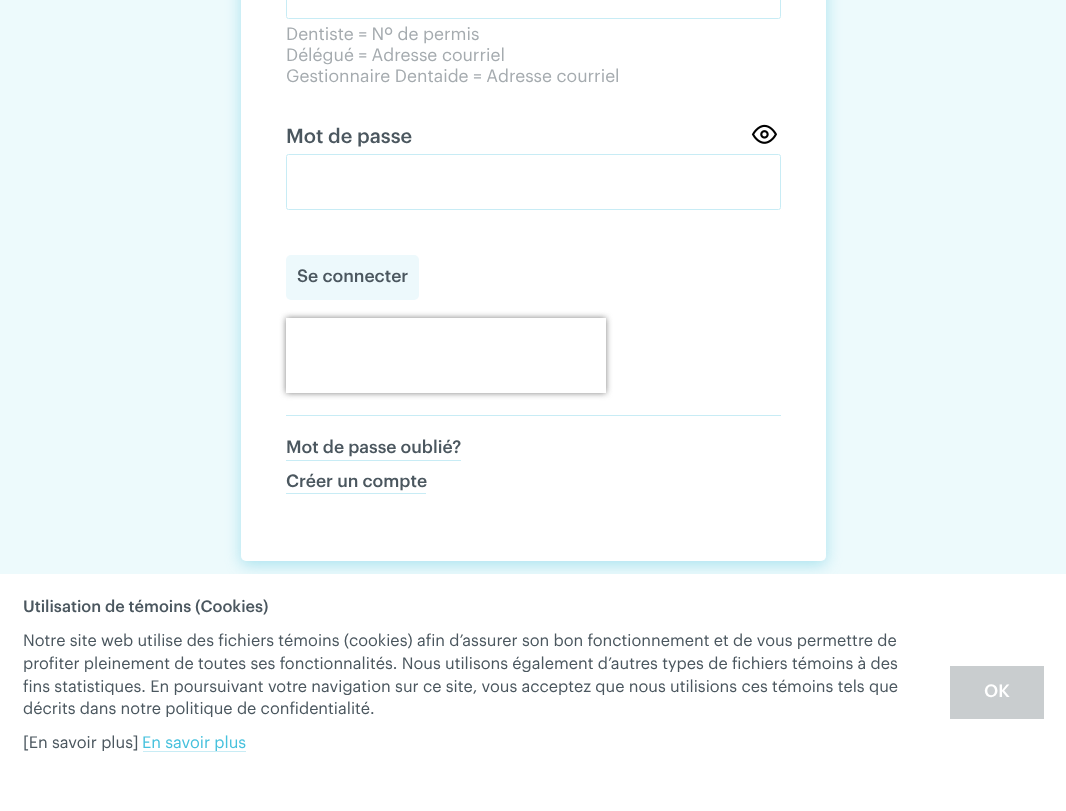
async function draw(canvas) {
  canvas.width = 1066;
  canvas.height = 811;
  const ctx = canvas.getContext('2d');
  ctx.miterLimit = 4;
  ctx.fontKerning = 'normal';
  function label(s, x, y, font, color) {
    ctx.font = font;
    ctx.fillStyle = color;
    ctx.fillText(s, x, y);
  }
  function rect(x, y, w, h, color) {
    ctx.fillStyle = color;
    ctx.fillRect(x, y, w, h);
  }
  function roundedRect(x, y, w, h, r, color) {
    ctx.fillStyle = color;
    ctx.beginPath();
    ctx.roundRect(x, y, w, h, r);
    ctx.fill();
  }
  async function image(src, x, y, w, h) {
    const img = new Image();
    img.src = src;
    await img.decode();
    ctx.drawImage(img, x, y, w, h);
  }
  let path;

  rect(0, 0, 1066, 811, '#edfafc');
  ctx.fillStyle = '#46c1dd66';
  ctx.filter = 'blur(7.5px)';
  ctx.beginPath();
  ctx.roundRect(241, -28, 585, 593, 5);
  ctx.fill();
  ctx.filter = 'none';
  roundedRect(241, -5, 585, 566, 5, '#fff');
  ctx.beginPath();
  ctx.roundRect(286.5, -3.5, 494, 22, 2);
  ctx.strokeStyle = '#c8ecf5';
  ctx.stroke();
  label('Dentiste = Nº de permis', 286, 40, '17.5px Graphik', '#a5abaf');
  label('Délégué = Adresse courriel', 286, 61, '17.5px Graphik', '#a5abaf');
  label('Gestionnaire Dentaide = Adresse courriel', 286, 82, '17.5px Graphik', '#a5abaf');
  label('Mot de passe', 286, 143, '500 20px Graphik', '#4b575f');
  await image('assets/img1.png', 751, 124, 26, 20);
  ctx.beginPath();
  ctx.roundRect(286.5, 154.5, 494, 55, 2);
  ctx.stroke();
  roundedRect(286, 255, 133, 45, 5, '#edf9fc');
  label('Se connecter', 297, 282, '500 17.5px Graphik', '#4b575f');
  ctx.save();
  path = new Path2D('M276 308H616V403H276ZM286 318H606V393H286Z');
  ctx.clip(path, 'evenodd');
  ctx.fillStyle = '#808080';
  ctx.filter = 'blur(3px)';
  ctx.beginPath();
  ctx.rect(286, 318, 320, 75);
  ctx.fill();
  ctx.filter = 'none';
  ctx.restore();
  rect(286, 415, 495, 1, '#c8ecf5');
  rect(286, 460, 175, 1, '#c8ecf5');
  label('Mot de passe oublié?', 286, 453, '500 17.5px Graphik', '#4b575f');
  rect(286, 493, 140, 1, '#c8ecf5');
  label('Créer un compte', 286, 487, '500 17.5px Graphik', '#4b575f');
  rect(0, 574, 1066, 237, '#fff');
  label('Utilisation de témoins (Cookies)', 23, 612, '500 16.25px Graphik', '#4b575f');
  label('Notre site web utilise des fichiers témoins (cookies) afin d’assurer son bon fonctionnement et de vous permettre de', 23, 646, '16.25px Graphik', '#4b575f');
  label('profiter pleinement de toutes ses fonctionnalités. Nous utilisons également d’autres types de fichiers témoins à des', 23, 669, '16.25px Graphik', '#4b575f');
  label('fins statistiques. En poursuivant votre navigation sur ce site, vous acceptez que nous utilisions ces témoins tels que', 23, 692, '16.25px Graphik', '#4b575f');
  label('décrits dans notre politique de confidentialité.', 23, 714, '16.25px Graphik', '#4b575f');
  label('[En savoir plus]', 23, 748, '16.25px Graphik', '#4b575f');
  label('En savoir plus', 142, 748, '16.25px Graphik', '#46c1dd');
  rect(143, 751, 103, 1, '#c8ecf5');
  rect(950, 666, 94, 53, '#c9cdcf');
  label('OK', 984, 697, '500 17.5px Graphik', '#fff');
}

draw(document.querySelector('canvas'));
